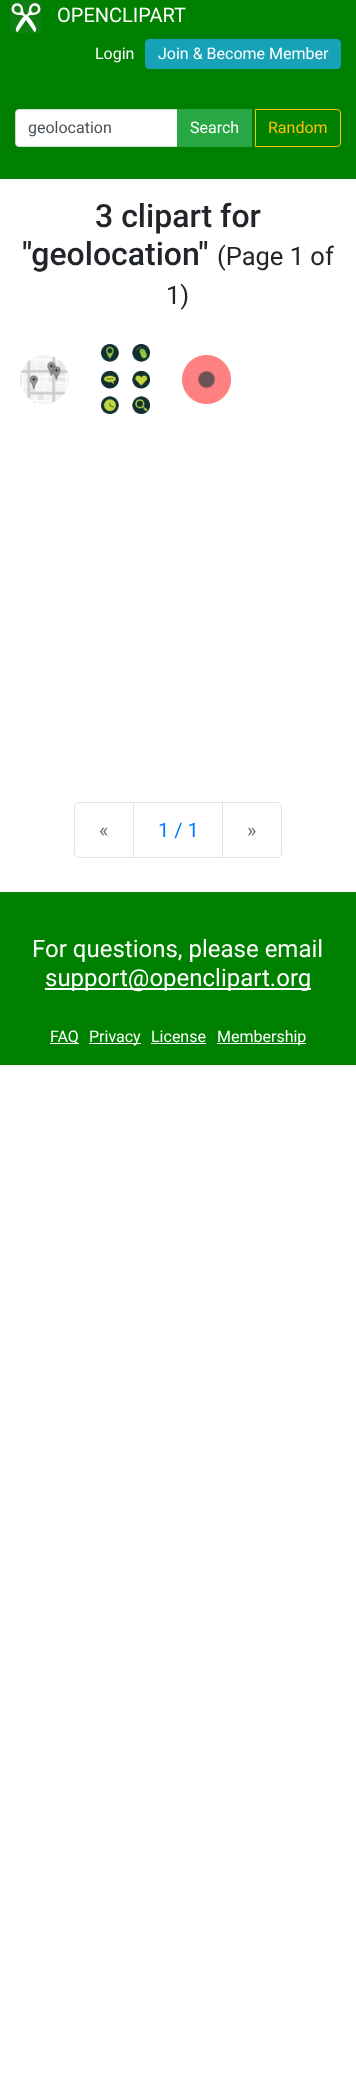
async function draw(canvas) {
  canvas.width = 356;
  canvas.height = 2095;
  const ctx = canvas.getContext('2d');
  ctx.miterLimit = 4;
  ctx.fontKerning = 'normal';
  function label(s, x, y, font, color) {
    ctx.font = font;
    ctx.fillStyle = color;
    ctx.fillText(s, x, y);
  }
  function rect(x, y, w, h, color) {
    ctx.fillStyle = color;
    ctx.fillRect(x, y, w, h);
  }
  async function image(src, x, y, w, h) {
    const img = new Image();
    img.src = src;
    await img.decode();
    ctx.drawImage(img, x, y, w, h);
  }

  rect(0, 0, 356, 2095, '#fff');
  rect(0, 0, 356, 179, '#008000');
  await image('assets/img1.png', 10, 1, 32, 32);
  label('OPENCLIPART', 57, 22, '20px Roboto', '#fff');
  label('Login', 95, 59, '16px Roboto', '#fff');
  ctx.fillStyle = '#17a2b8';
  ctx.beginPath();
  ctx.roundRect(145.5, 39.5, 195, 29, 3.5);
  ctx.fill();
  ctx.strokeStyle = '#17a2b8';
  ctx.stroke();
  label('Join & Become Member', 158, 59, '16px Roboto', '#fff');
  ctx.beginPath();
  ctx.roundRect(15.5, 109.5, 162, 37, [3.5, 0, 0, 3.5]);
  ctx.fill();
  ctx.strokeStyle = '#ced4da';
  ctx.stroke();
  label('geolocation', 28, 133, '16px Roboto', '#495057');
  rect(177, 109, 75, 38, '#28a745');
  label('Search', 190, 133, '16px Roboto', '#fff');
  ctx.beginPath();
  ctx.roundRect(255.5, 109.5, 85, 37, [0, 3.5, 3.5, 0]);
  ctx.strokeStyle = '#ffc107';
  ctx.stroke();
  label('Random', 268, 133, '16px Roboto', '#ffc107');
  label('3 clipart for', 95, 227, '500 32px Roboto', '#212529');
  label('"geolocation"', 22, 265, '500 32px Roboto', '#212529');
  label('(Page 1 of', 217, 265, '25.5px Roboto', '#212529');
  label('1)', 166, 304, '25.5px Roboto', '#212529');
  await image('assets/img2.png', 20, 355, 49, 49);
  await image('assets/img3.png', 101, 344, 49, 70);
  await image('assets/img4.png', 182, 355, 49, 49);
  ctx.beginPath();
  ctx.roundRect(74.5, 802.5, 59, 55, [4.5, 0, 0, 4.5]);
  ctx.strokeStyle = '#dee2e6';
  ctx.stroke();
  label('«', 99, 837, '20px Roboto', '#6c757d');
  ctx.strokeRect(133.5, 802.5, 89, 55);
  label('1 / 1', 158, 837, '20px Roboto', '#007bff');
  ctx.fillStyle = '#fff';
  ctx.beginPath();
  ctx.roundRect(222.5, 802.5, 59, 55, [0, 4.5, 4.5, 0]);
  ctx.fill();
  ctx.stroke();
  label('»', 247, 837, '20px Roboto', '#6c757d');
  rect(0, 892, 356, 173, '#008000');
  label('For questions, please email', 32, 957, '24px Roboto', '#fff');
  rect(45, 988, 266, 2, '#fff');
  label('support@openclipart.org', 45, 986, '24px Roboto', '#fff');
  rect(50, 1043, 29, 1, '#fff');
  label('FAQ', 50, 1042, '16px Roboto', '#fff');
  rect(89, 1043, 52, 1, '#fff');
  label('Privacy', 89, 1042, '16px Roboto', '#fff');
  label('License', 151, 1042, '16px Roboto', '#fff');
  rect(151, 1043, 55, 1, '#fff');
  rect(217, 1043, 89, 1, '#fff');
  label('Membership', 217, 1042, '16px Roboto', '#fff');
}

draw(document.querySelector('canvas'));
